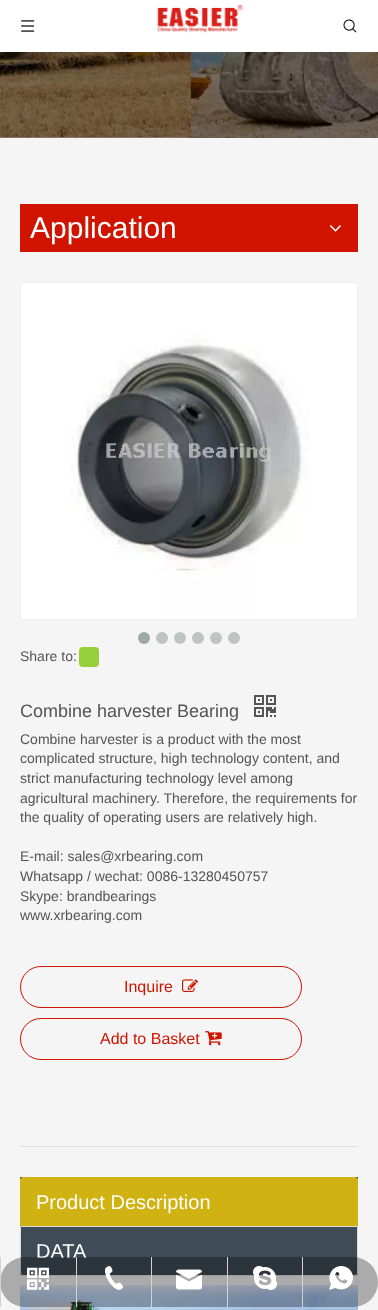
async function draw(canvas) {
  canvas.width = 378;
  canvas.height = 1310;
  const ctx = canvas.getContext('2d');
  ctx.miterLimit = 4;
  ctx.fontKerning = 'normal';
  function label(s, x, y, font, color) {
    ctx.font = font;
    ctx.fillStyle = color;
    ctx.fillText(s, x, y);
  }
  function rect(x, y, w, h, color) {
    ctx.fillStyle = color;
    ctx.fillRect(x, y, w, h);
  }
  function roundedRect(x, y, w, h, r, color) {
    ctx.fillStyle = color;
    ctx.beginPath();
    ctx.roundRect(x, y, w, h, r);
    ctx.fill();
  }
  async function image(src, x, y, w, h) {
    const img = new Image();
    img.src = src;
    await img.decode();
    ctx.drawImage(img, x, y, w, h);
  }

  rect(0, 0, 378, 1310, '#f5f5f5');
  rect(0, 0, 378, 52, '#fff');
  await image('assets/img1.png', 21, 20, 14, 12);
  await image('assets/img2.png', 157, 5, 87, 28);
  await image('assets/img3.png', 343, 19, 14, 14);
  await image('assets/img4.png', 0, 52, 378, 86);
  rect(20, 204, 338, 48, '#d11400');
  label('Application', 30, 238, '30px Liberation Sans', '#fff');
  await image('assets/img5.png', 329, 225, 12, 7);
  ctx.beginPath();
  ctx.roundRect(20.5, 282.5, 337, 337, 1.5);
  ctx.strokeStyle = '#efefef';
  ctx.stroke();
  await image('assets/img6.png', 21, 283, 336, 336);
  ctx.fillStyle = '#9caaa5';
  ctx.beginPath();
  ctx.arc(144, 638, 6, 0, 2 * Math.PI);
  ctx.fill();
  ctx.fillStyle = '#bec6c3';
  ctx.beginPath();
  ctx.arc(162, 638, 6, 0, 2 * Math.PI);
  ctx.fill();
  ctx.beginPath();
  ctx.arc(180, 638, 6, 0, 2 * Math.PI);
  ctx.fill();
  ctx.beginPath();
  ctx.arc(198, 638, 6, 0, 2 * Math.PI);
  ctx.fill();
  ctx.beginPath();
  ctx.arc(216, 638, 6, 0, 2 * Math.PI);
  ctx.fill();
  ctx.beginPath();
  ctx.arc(234, 638, 6, 0, 2 * Math.PI);
  ctx.fill();
  label('Share to:', 20, 661, '14px Liberation Sans', '#545454');
  roundedRect(79, 647, 20, 20, 4, '#95d03a');
  label('Combine harvester Bearing', 20, 717, '18px Liberation Sans', '#545454');
  await image('assets/img7.png', 254, 695, 22, 22);
  label('Combine harvester is a product with the most', 20, 744, '14px Liberation Sans', '#545454');
  label('complicated structure, high technology content, and', 20, 763, '14px Liberation Sans', '#545454');
  label('strict manufacturing technology level among', 20, 783, '14px Liberation Sans', '#545454');
  label('agricultural machinery. Therefore, the requirements for', 20, 803, '14px Liberation Sans', '#545454');
  label('the quality of operating users are relatively high.', 20, 822, '14px Liberation Sans', '#545454');
  label('E-mail: sales@xrbearing.com', 20, 861, '14px Liberation Sans', '#545454');
  label('Whatsapp / wechat: 0086-13280450757', 20, 881, '14px Liberation Sans', '#545454');
  label('Skype: brandbearings', 20, 901, '14px Liberation Sans', '#545454');
  label('www.xrbearing.com', 20, 920, '14px Liberation Sans', '#545454');
  ctx.beginPath();
  ctx.roundRect(20.5, 966.5, 281, 41, 20.5);
  ctx.strokeStyle = '#d11400';
  ctx.stroke();
  label('Inquire', 124, 992, '16px Liberation Sans', '#d11400');
  await image('assets/img8.png', 182, 979, 16, 13);
  ctx.beginPath();
  ctx.roundRect(20.5, 1018.5, 281, 41, 20.5);
  ctx.stroke();
  label('Add to Basket', 100, 1044, '16px Liberation Sans', '#d11400');
  await image('assets/img9.png', 205, 1031, 17, 15);
  rect(20, 1146, 338, 1, '#dfdfdf');
  rect(20, 1177, 338, 98, '#3f4b57');
  ctx.fillStyle = '#d0b212';
  ctx.beginPath();
  ctx.roundRect(20.5, 1177.5, 337, 49, [2.5, 2.5, 0, 0]);
  ctx.fill();
  ctx.strokeStyle = '#d0b212';
  ctx.stroke();
  label('Product Description', 36, 1209, '20px Liberation Sans', '#fff');
  ctx.fillStyle = '#3f4b57';
  ctx.beginPath();
  ctx.roundRect(20.5, 1226.5, 337, 49, [0, 0, 2.5, 2.5]);
  ctx.fill();
  ctx.strokeStyle = '#ddd';
  ctx.stroke();
  label('DATA', 36, 1258, '20px Liberation Sans', '#fff');
  await image('assets/img10.png', 20, 1285, 338, 25);
  roundedRect(0, 1257, 378, 50, 25, '#0000004d');
  rect(0, 1257, 1, 50, '#d3d3d3');
  await image('assets/img11.png', 27, 1267, 22, 23);
  rect(76, 1257, 1, 50, '#d3d3d3');
  await image('assets/img12.png', 105, 1266, 18, 24);
  rect(151, 1257, 1, 50, '#d3d3d3');
  await image('assets/img13.png', 176, 1269, 26, 21);
  rect(227, 1257, 1, 50, '#d3d3d3');
  await image('assets/img14.png', 253, 1266, 24, 24);
  rect(302, 1257, 1, 50, '#d3d3d3');
  await image('assets/img15.png', 329, 1266, 24, 24);
}

draw(document.querySelector('canvas'));
